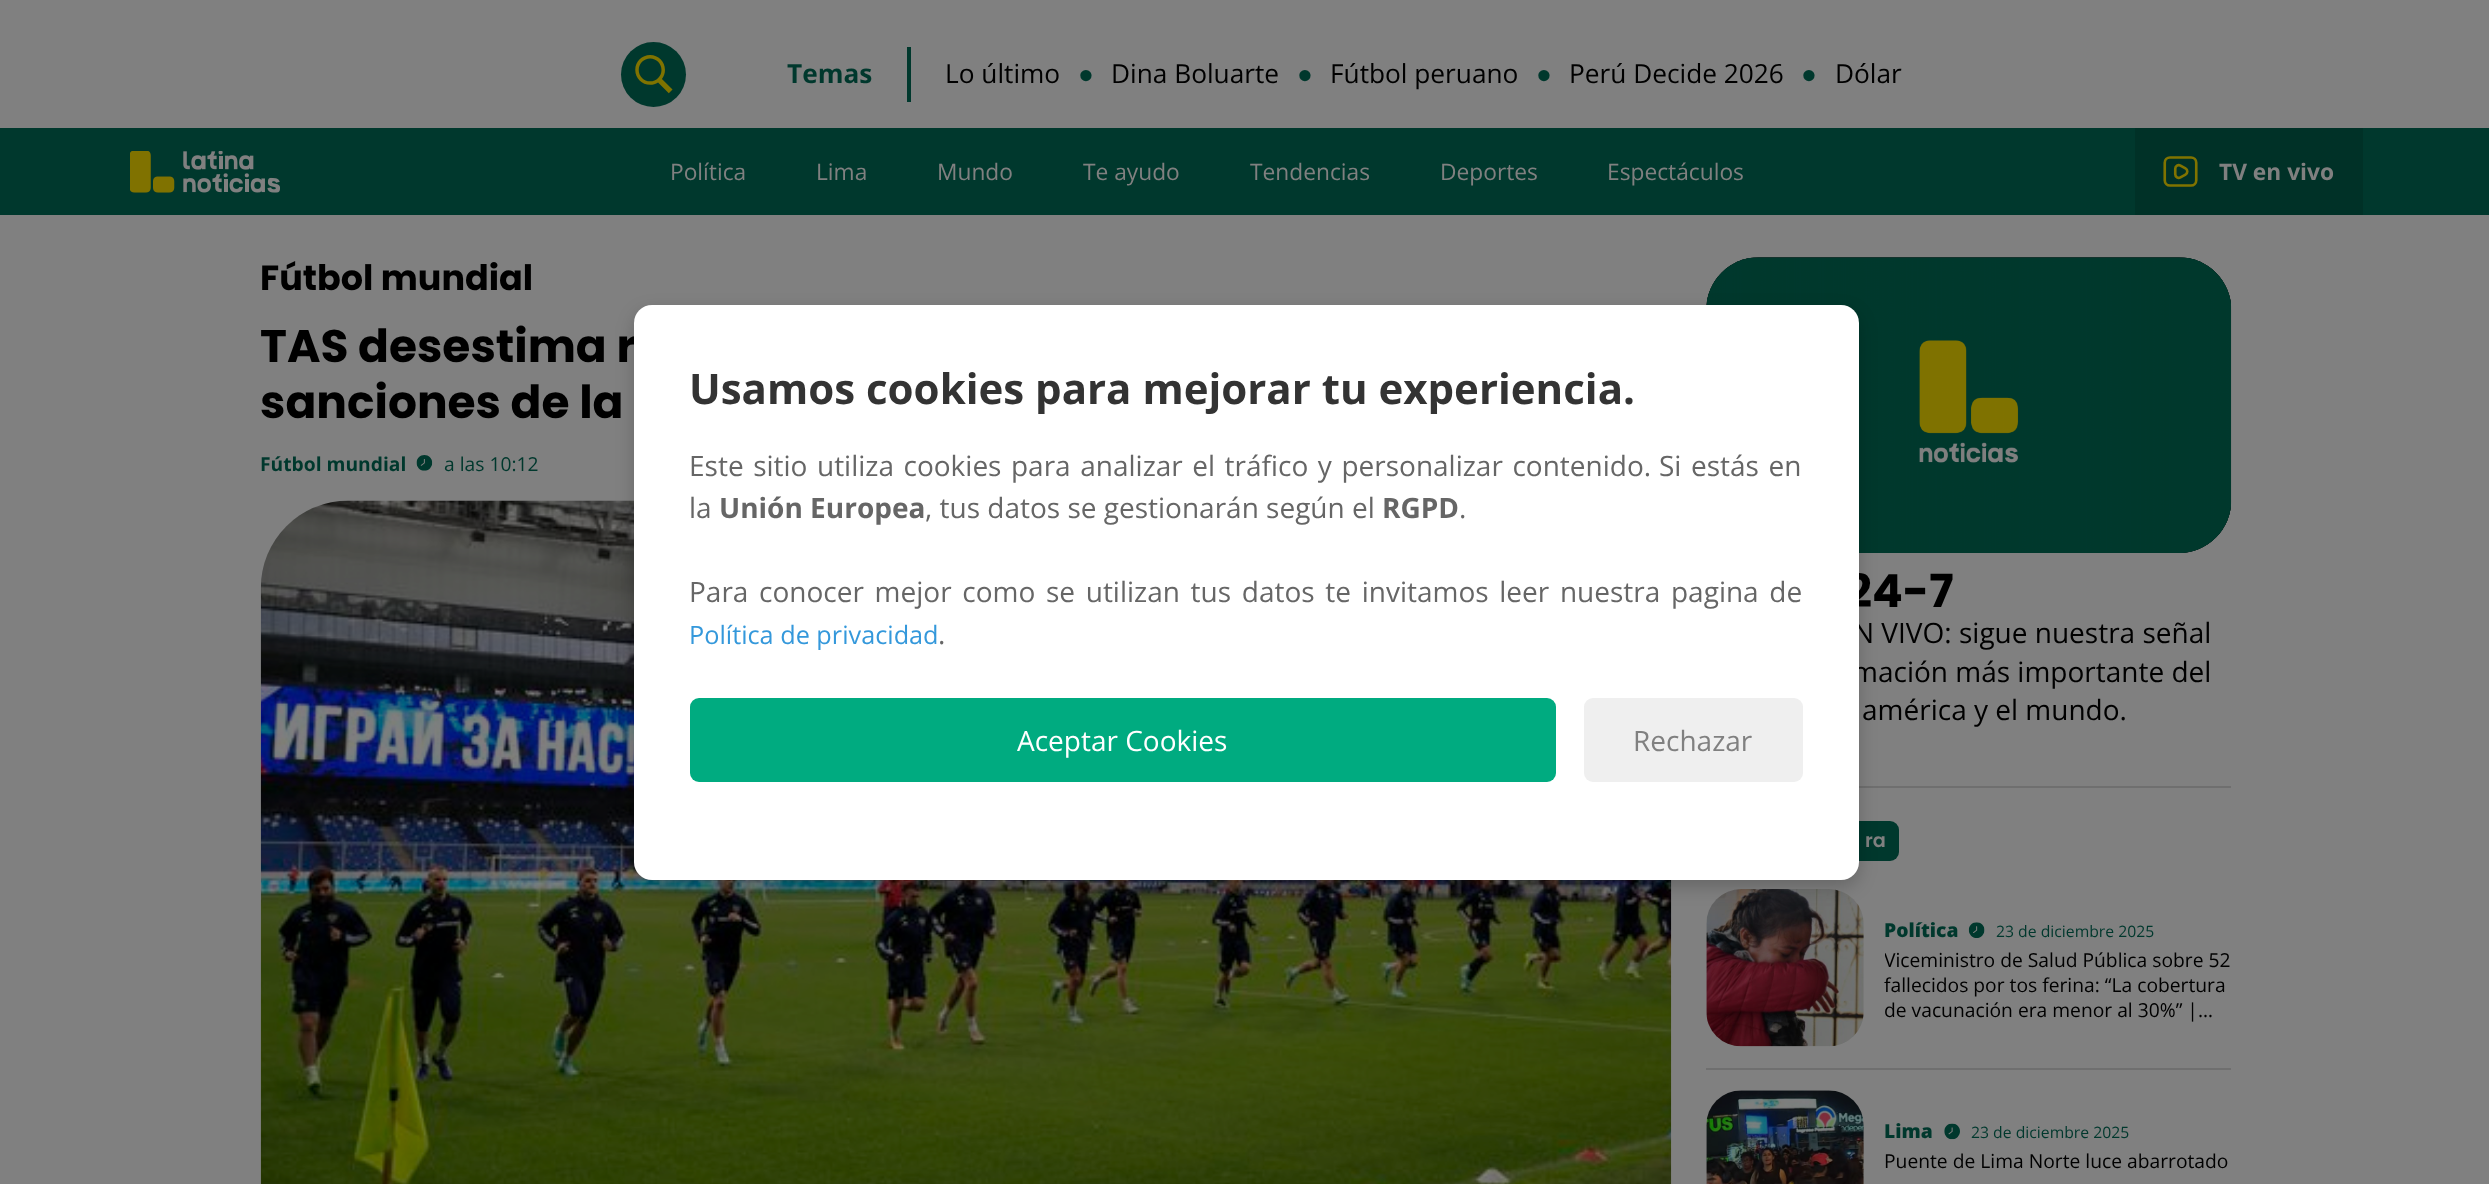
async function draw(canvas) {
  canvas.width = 2489;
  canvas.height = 1184;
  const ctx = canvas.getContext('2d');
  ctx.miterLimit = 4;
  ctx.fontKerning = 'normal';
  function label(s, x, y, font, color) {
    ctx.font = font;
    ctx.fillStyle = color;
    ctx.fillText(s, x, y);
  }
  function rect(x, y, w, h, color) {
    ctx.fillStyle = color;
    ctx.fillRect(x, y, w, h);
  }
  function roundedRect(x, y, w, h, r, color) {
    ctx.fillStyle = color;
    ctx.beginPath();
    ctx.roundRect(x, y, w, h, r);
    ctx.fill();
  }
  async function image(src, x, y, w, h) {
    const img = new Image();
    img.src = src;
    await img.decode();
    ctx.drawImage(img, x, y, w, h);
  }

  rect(0, 0, 2489, 1184, '#808080');
  ctx.fillStyle = '#00382d';
  ctx.beginPath();
  ctx.arc(653.5, 74.5, 32.5, 0, 2 * Math.PI);
  ctx.fill();
  await image('assets/img1.png', 635, 55, 38, 39);
  rect(907, 47, 4, 55, '#00382d');
  label('Temas', 787, 83, 'bold 26.25px Open Sans', '#00382d');
  label('Lo último', 945, 83, '26.25px Open Sans', '#000');
  label('●', 1078, 83, '26.25px Liberation Sans', '#00382d');
  label('Dina Boluarte', 1111, 83, '26.25px Open Sans', '#000');
  label('●', 1297, 83, '26.25px Liberation Sans', '#00382d');
  label('Fútbol peruano', 1330, 83, '26.25px Open Sans', '#000');
  label('●', 1536, 83, '26.25px Liberation Sans', '#00382d');
  label('Perú Decide 2026', 1569, 83, '26.25px Open Sans', '#000');
  label('●', 1801, 83, '26.25px Liberation Sans', '#00382d');
  label('Dólar', 1835, 83, '26.25px Open Sans', '#000');
  rect(0, 128, 2489, 87, '#00382d');
  await image('assets/img2.png', 130, 151, 150, 42);
  label('Política', 670, 180, '22.75px "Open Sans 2"', '#808080');
  label('Lima', 816, 180, '22.75px "Open Sans 2"', '#808080');
  label('Mundo', 937, 180, '22.75px "Open Sans 2"', '#808080');
  label('Te ayudo', 1083, 180, '22.75px "Open Sans 2"', '#808080');
  label('Tendencias', 1250, 180, '22.75px "Open Sans 2"', '#808080');
  label('Deportes', 1440, 180, '22.75px "Open Sans 2"', '#808080');
  label('Espectáculos', 1607, 180, '22.75px "Open Sans 2"', '#808080');
  rect(2135, 128, 228, 87, '#003127');
  await image('assets/img3.png', 2163, 156, 35, 31);
  label('TV en vivo', 2219, 180, 'bold 22.75px Open Sans', '#808080');
  label('Fútbol mundial', 260, 290, 'bold 35px Poppins', '#000');
  label('TAS desestima r', 260, 362, 'bold 45.5px Poppins', '#000');
  label('sanciones de la', 260, 418, 'bold 45.5px Poppins', '#000');
  label('Fútbol mundial', 260, 471, 'bold 19.25px Open Sans', '#00382d');
  await image('assets/img4.png', 416, 455, 17, 16);
  label('a las 10:12', 444, 471, '19.25px "Open Sans 2"', '#00382d');
  await image('assets/img5.png', 260, 500, 1412, 684);
  await image('assets/img6.png', 1706, 257, 526, 296);
  label('24-7', 1846, 607, 'bold 45.5px Poppins', '#000');
  label('N VIVO: sigue nuestra señal', 1853, 643, '28px "Open Sans 2"', '#000');
  label('mación más importante del', 1852, 682, '28px "Open Sans 2"', '#000');
  label('américa y el mundo.', 1862, 720, '28px "Open Sans 2"', '#000');
  rect(1859, 786, 372, 2, '#6f6f6f');
  roundedRect(1706, 821, 193, 40, 9, '#00382d');
  label('ra', 1865, 847, '600 19.25px Poppins', '#808080');
  await image('assets/img7.png', 1706, 889, 158, 158);
  label('Política', 1884, 937, '800 19.25px Open Sans', '#00382d');
  await image('assets/img8.png', 1968, 922, 17, 16);
  label('23 de diciembre 2025', 1996, 937, '15.75px "Open Sans 2"', '#00382d');
  ctx.save();
  ctx.beginPath();
  ctx.rect(1885, 949, 346, 73);
  ctx.clip();
  label('Viceministro de Salud Pública sobre 52', 1884, 967, '19.25px "Open Sans 2"', '#000');
  ctx.restore();
  label('fallecidos por tos ferina: “La cobertura', 1884, 992, '19.25px "Open Sans 2"', '#000');
  label('de vacunación era menor al 30%” |…', 1884, 1017, '19.25px "Open Sans 2"', '#000');
  rect(1706, 1068, 525, 2, '#6f6f6f');
  await image('assets/img9.png', 1706, 1090, 158, 94);
  label('Lima', 1884, 1138, '800 19.25px Open Sans', '#00382d');
  await image('assets/img10.png', 1944, 1123, 16, 17);
  label('23 de diciembre 2025', 1971, 1138, '15.75px "Open Sans 2"', '#00382d');
  label('Puente de Lima Norte luce abarrotado', 1884, 1168, '19.25px "Open Sans 2"', '#000');
  ctx.fillStyle = '#00000033';
  ctx.filter = 'blur(9px)';
  ctx.beginPath();
  ctx.roundRect(634, 312, 1225, 575, 18);
  ctx.fill();
  ctx.filter = 'none';
  roundedRect(634, 305, 1225, 575, 18, '#fff');
  label('Usamos cookies para mejorar tu experiencia.', 689, 404, 'bold 42px Open Sans', '#333');
  ctx.wordSpacing = '2.25px';
  label('Este sitio utiliza cookies para analizar el tráfico y personalizar contenido.', 689, 476, '28px "Open Sans 2"', '#666');
  label('Si estás en', 1659, 476, '28px "Open Sans 2"', '#666');
  ctx.wordSpacing = '0px';
  label('la', 689, 518, '28px "Open Sans 2"', '#666');
  label('Unión Europea', 719, 518, 'bold 28px Open Sans', '#666');
  label(', tus datos se gestionarán según el', 925, 518, '28px "Open Sans 2"', '#666');
  label('RGPD', 1382, 518, 'bold 28px Open Sans', '#666');
  label('.', 1459, 518, '28px "Open Sans 2"', '#666');
  ctx.wordSpacing = '3.4px';
  label('Para conocer mejor como se utilizan tus datos te invitamos leer nuestra pagina de', 689, 602, '28px "Open Sans 2"', '#666');
  ctx.wordSpacing = '0px';
  label('Política de privacidad', 689, 644, '25.25px "Open Sans 2"', '#3498db');
  label('.', 938, 644, '28px "Open Sans 2"', '#666');
  roundedRect(690, 698, 866, 84, 9, '#00ab80');
  label('Aceptar Cookies', 1017, 751, '28px "Open Sans 2"', '#fff');
  roundedRect(1584, 698, 219, 84, 9, '#efefef');
  label('Rechazar', 1633, 751, '28px "Open Sans 2"', '#808080');
}

draw(document.querySelector('canvas'));
